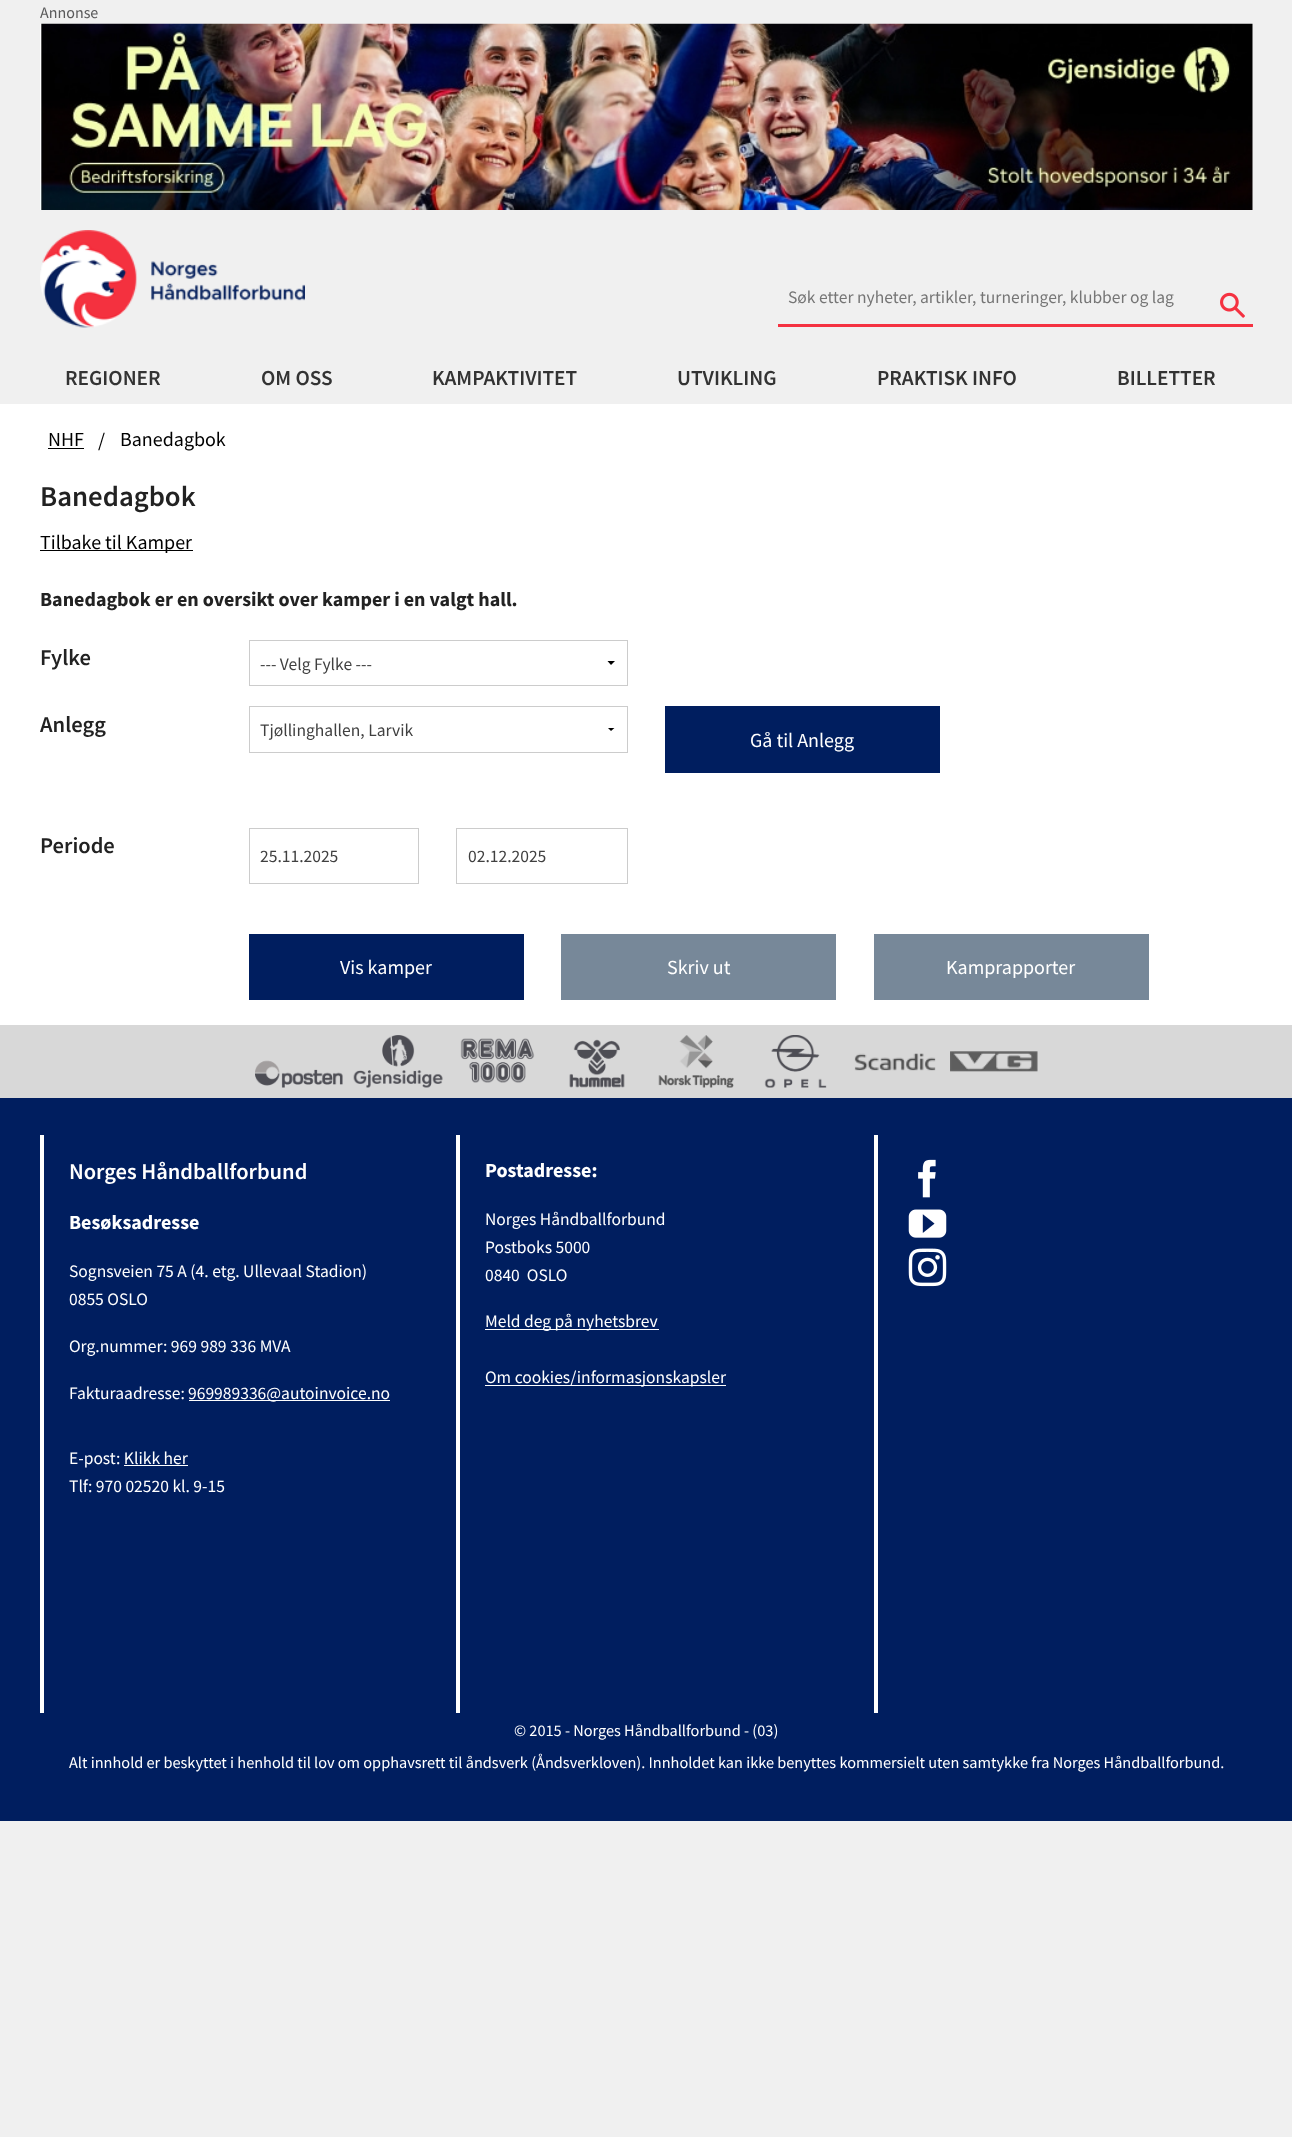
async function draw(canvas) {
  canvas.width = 1292;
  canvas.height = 2137;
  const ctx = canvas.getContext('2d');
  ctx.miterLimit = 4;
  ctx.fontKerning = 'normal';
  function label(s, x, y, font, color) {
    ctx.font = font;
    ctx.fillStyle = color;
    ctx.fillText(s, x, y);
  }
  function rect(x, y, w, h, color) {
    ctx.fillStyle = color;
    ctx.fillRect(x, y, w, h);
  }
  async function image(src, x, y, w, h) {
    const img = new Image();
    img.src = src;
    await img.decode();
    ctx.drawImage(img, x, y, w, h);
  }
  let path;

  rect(0, 0, 1292, 2137, '#f0f0f0');
  label('Annonse', 40, 18, '16px Source Sans Pro', '#59595a');
  await image('assets/img1.png', 40, 23, 1213, 187);
  await image('assets/img2.png', 40, 230, 265, 98);
  rect(778, 324, 475, 3, '#f53241');
  label('Søk etter nyheter, artikler, turneringer, klubber og lag', 788, 303, '17.5px Source Sans Pro', '#757575');
  await image('assets/img3.png', 1220, 292, 25, 26);
  label('REGIONER', 65, 385, '600 21.25px Source Sans Pro', '#333');
  label('OM OSS', 261, 385, '600 21.25px Source Sans Pro', '#333');
  label('KAMPAKTIVITET', 432, 385, '600 21.25px Source Sans Pro', '#333');
  label('UTVIKLING', 677, 385, '600 21.25px Source Sans Pro', '#333');
  label('PRAKTISK INFO', 877, 385, '600 21.25px Source Sans Pro', '#333');
  label('BILLETTER', 1117, 385, '600 21.25px Source Sans Pro', '#333');
  rect(0, 404, 1292, 621, '#fff');
  label('NHF', 48, 446, '20px Source Sans Pro', '#000');
  rect(48, 448, 36, 1, '#000');
  label('/', 98, 447, '20px Source Sans Pro', '#000');
  label('Banedagbok', 120, 446, '20px Source Sans Pro', '#000');
  label('Banedagbok', 40, 506, '600 28.75px Source Sans Pro', '#222');
  rect(40, 550, 153, 1, '#000');
  label('Tilbake til Kamper', 40, 549, '20px Source Sans Pro', '#000');
  label('Banedagbok er en oversikt over kamper i en valgt hall.', 40, 606, 'bold 20px Source Sans Pro', '#222');
  label('Fylke', 40, 665, '600 22.5px Source Sans Pro', '#222');
  ctx.fillStyle = '#000';
  path = new Path2D('M615 661L611 665L607.5 661Z');
  ctx.fill(path);
  ctx.strokeStyle = '#ccc';
  ctx.strokeRect(249.5, 640.5, 378, 45);
  label('--- Velg Fylke ---', 260, 670, '17.5px Source Sans Pro', '#404040');
  label('Anlegg', 40, 732, '600 22.5px Source Sans Pro', '#222');
  ctx.save();
  ctx.beginPath();
  ctx.rect(596, 728, 30, 4);
  ctx.clip();
  ctx.fillStyle = '#000';
  path = new Path2D('M615 727.5L611 731L607.5 727.5Z');
  ctx.fill(path);
  ctx.restore();
  ctx.strokeRect(249.5, 706.5, 378, 46);
  label('Tjøllinghallen, Larvik', 260, 736, '17.5px Source Sans Pro', '#404040');
  rect(665, 706, 275, 67, '#001e5f');
  label('Gå til Anlegg', 750, 747, '20px Source Sans Pro', '#fff');
  label('Periode', 40, 853, '600 22.5px Source Sans Pro', '#222');
  ctx.strokeRect(249.5, 828.5, 169, 55);
  label('25.11.2025', 260, 862, '17.5px Source Sans Pro', '#404040');
  ctx.strokeRect(456.5, 828.5, 171, 55);
  label('02.12.2025', 468, 862, '17.5px Source Sans Pro', '#404040');
  rect(249, 934, 275, 66, '#001e5f');
  label('Vis kamper', 340, 974, '20px Source Sans Pro', '#fff');
  rect(561, 934, 275, 66, '#789');
  label('Skriv ut', 667, 974, '20px Source Sans Pro', '#fff');
  rect(874, 934, 275, 66, '#789');
  label('Kamprapporter', 946, 974, '20px Source Sans Pro', '#fff');
  rect(0, 1025, 1292, 73, '#d8d8d8');
  await image('assets/img4.png', 255, 1060, 88, 28);
  await image('assets/img5.png', 353, 1035, 90, 53);
  await image('assets/img6.png', 460, 1038, 75, 45);
  await image('assets/img7.png', 569, 1039, 56, 49);
  await image('assets/img8.png', 658, 1035, 76, 53);
  await image('assets/img9.png', 764, 1035, 63, 53);
  await image('assets/img10.png', 854, 1053, 82, 18);
  await image('assets/img11.png', 950, 1051, 88, 21);
  rect(0, 1098, 1292, 723, '#001e5f');
  rect(40, 1135, 4, 578, '#fff');
  label('Norges Håndballforbund', 69, 1179, '600 22.5px Source Sans Pro', '#fff');
  label('Besøksadresse', 69, 1229, 'bold 20px Source Sans Pro', '#fff');
  label('Sognsveien 75 A (4. etg. Ullevaal Stadion)', 69, 1277, '17.5px Source Sans Pro', '#fff');
  label('0855 OSLO', 69, 1305, '17.5px Source Sans Pro', '#fff');
  label('Org.nummer: 969 989 336 MVA', 69, 1352, '17.5px Source Sans Pro', '#fff');
  label('Fakturaadresse:', 69, 1399, '17.5px Source Sans Pro', '#fff');
  rect(189, 1400, 201, 1, '#fff');
  label('969989336@autoinvoice.no', 188, 1399, '17.5px Source Sans Pro', '#fff');
  label('E-post: Klikk her', 69, 1464, '17.5px Source Sans Pro', '#fff');
  rect(124, 1465, 64, 1, '#fff');
  label('Tlf: 970 02520 kl. 9-15', 69, 1492, '17.5px Source Sans Pro', '#fff');
  rect(456, 1135, 4, 578, '#fff');
  label('Postadresse:', 485, 1177, 'bold 20px Source Sans Pro', '#fff');
  label('Norges Håndballforbund', 485, 1225, '17.5px Source Sans Pro', '#fff');
  label('Postboks 5000', 485, 1253, '17.5px Source Sans Pro', '#fff');
  label('0840  OSLO', 485, 1281, '17.5px Source Sans Pro', '#fff');
  rect(485, 1329, 174, 1, '#fff');
  label('Meld deg på nyhetsbrev', 485, 1327, '17.5px Source Sans Pro', '#fff');
  rect(485, 1385, 241, 1, '#fff');
  label('Om cookies/informasjonskapsler', 485, 1383, '17.5px Source Sans Pro', '#fff');
  rect(874, 1135, 4, 578, '#fff');
  await image('assets/img12.png', 918, 1159, 18, 39);
  await image('assets/img13.png', 908, 1209, 39, 29);
  await image('assets/img14.png', 908, 1248, 39, 39);
  label('© 2015 - Norges Håndballforbund - (03)', 514, 1736, '16.25px Source Sans Pro', '#fff');
  label('Alt innhold er beskyttet i henhold til lov om opphavsrett til åndsverk (Åndsverkloven). Innholdet kan ikke benyttes kommersielt uten samtykke fra Norges Håndballforbund.', 69, 1768, '16.25px Source Sans Pro', '#fff');
}

draw(document.querySelector('canvas'));
